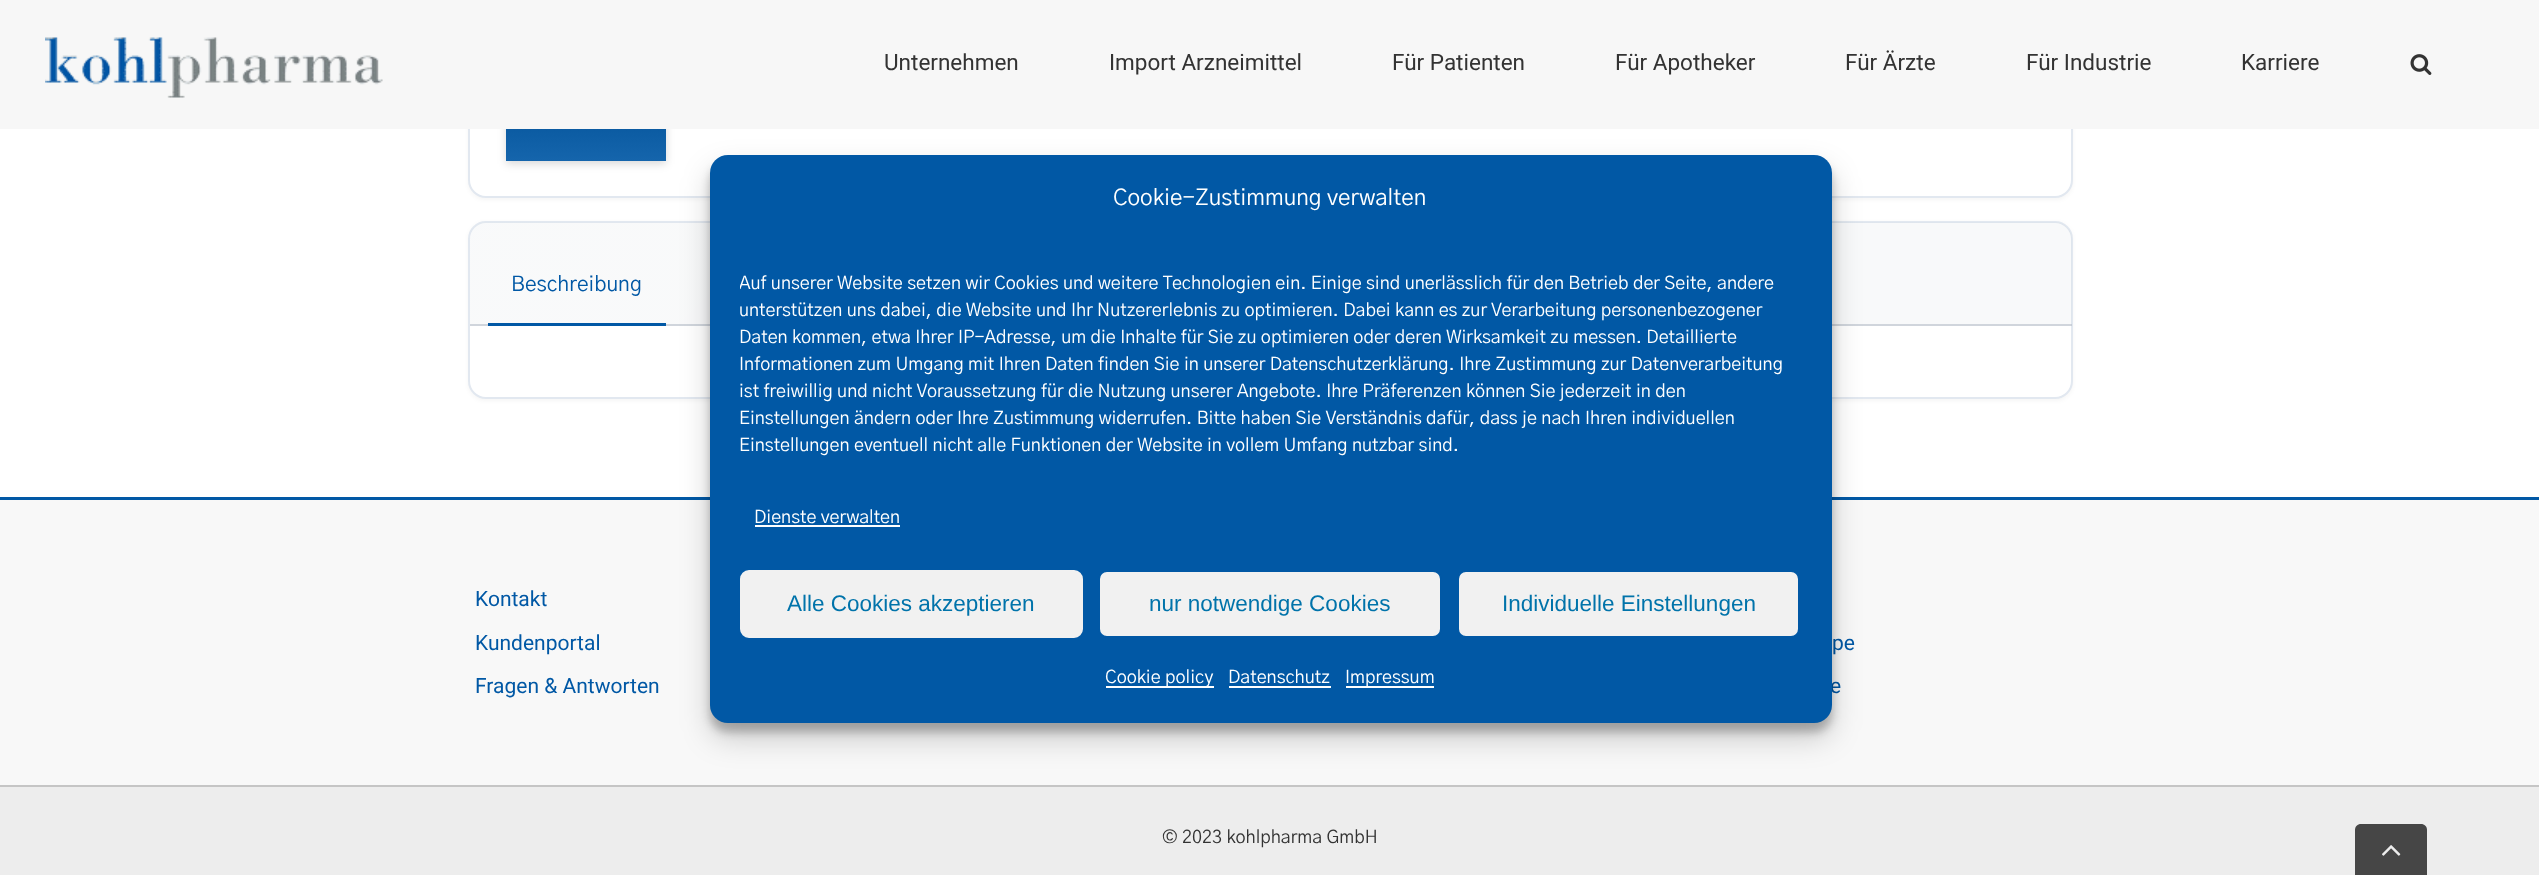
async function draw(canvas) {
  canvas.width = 2539;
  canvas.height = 875;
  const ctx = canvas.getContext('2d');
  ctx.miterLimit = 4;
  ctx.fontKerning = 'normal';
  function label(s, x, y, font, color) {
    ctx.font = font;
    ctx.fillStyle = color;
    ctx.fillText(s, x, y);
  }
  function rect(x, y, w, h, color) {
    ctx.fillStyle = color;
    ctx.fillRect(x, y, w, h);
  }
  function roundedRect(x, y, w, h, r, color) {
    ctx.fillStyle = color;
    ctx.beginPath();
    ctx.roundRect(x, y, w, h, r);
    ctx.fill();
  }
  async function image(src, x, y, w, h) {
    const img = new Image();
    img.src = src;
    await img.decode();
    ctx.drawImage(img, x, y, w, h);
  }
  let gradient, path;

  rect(0, 0, 2539, 875, '#fff');
  ctx.fillStyle = '#0000000a';
  ctx.filter = 'blur(2px)';
  ctx.beginPath();
  ctx.roundRect(468, 59, 1605, 141, 18);
  ctx.fill();
  ctx.filter = 'none';
  ctx.fillStyle = '#fff';
  ctx.beginPath();
  ctx.roundRect(469, 58, 1603, 139, 17);
  ctx.fill();
  ctx.strokeStyle = '#e2e8f0';
  ctx.lineWidth = 2;
  ctx.stroke();
  ctx.fillStyle = '#00000026';
  ctx.filter = 'blur(4.5px)';
  ctx.beginPath();
  ctx.rect(506, 98, 160, 66);
  ctx.fill();
  ctx.filter = 'none';
  rect(0, 0, 2539, 129, '#f7f7f7');
  await image('assets/img1.png', 45, 37, 338, 61);
  label('Unternehmen', 884, 70, '22.5px Roboto', '#333');
  label('Import Arzneimittel', 1109, 70, '22.5px Roboto', '#333');
  label('Für Patienten', 1392, 70, '22.5px Roboto', '#333');
  label('Für Apotheker', 1615, 70, '22.5px Roboto', '#333');
  label('Für Ärzte', 1845, 70, '22.5px Roboto', '#333');
  label('Für Industrie', 2026, 70, '22.5px Roboto', '#333');
  label('Karriere', 2241, 70, '22.5px Roboto', '#333');
  await image('assets/img2.png', 2410, 54, 22, 21);
  gradient = ctx.createLinearGradient(586, 94, 586, 161);
  gradient.addColorStop(0, '#015198');
  gradient.addColorStop(1, '#1565ac');
  ctx.fillStyle = gradient;
  ctx.fillRect(506, 129, 160, 32);
  ctx.fillStyle = '#0000000a';
  ctx.filter = 'blur(2px)';
  ctx.beginPath();
  ctx.roundRect(468, 222, 1605, 179, 18);
  ctx.fill();
  ctx.filter = 'none';
  ctx.fillStyle = '#fff';
  ctx.beginPath();
  ctx.roundRect(469, 222, 1603, 176, 17);
  ctx.fill();
  ctx.stroke();
  ctx.fillStyle = '#cbd0d621';
  ctx.beginPath();
  ctx.roundRect(470, 222, 1602, 104, [17, 17, 0, 0]);
  ctx.fill();
  gradient = ctx.createLinearGradient(845, -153, 1697, 699);
  gradient.addColorStop(0, '#ffffff1a');
  gradient.addColorStop(1, '#ffffff00');
  ctx.fillStyle = gradient;
  ctx.beginPath();
  ctx.roundRect(470, 222, 1602, 102, [17, 17, 0, 0]);
  ctx.fill();
  rect(470, 324, 1602, 2, '#b8bfcaa1');
  label('Beschreibung', 511, 291, '21px "Gothic A1"', '#0158a5');
  rect(488, 323, 178, 3, '#0158a5');
  rect(0, 500, 2539, 285, '#f8f8f8');
  rect(0, 497, 2539, 3, '#0158a5');
  label('Kontakt', 475, 606, '21px Roboto', '#0158a5');
  label('Kundenportal', 475, 650, '21px Roboto', '#0158a5');
  label('Fragen & Antworten', 475, 693, '21px Roboto', '#0158a5');
  label('pe', 1832, 650, '21px Roboto', '#0158a5');
  label('e', 1830, 693, '21px Roboto', '#0158a5');
  rect(0, 787, 2539, 88, '#ededed');
  rect(0, 785, 2539, 2, '#c5c5c5');
  label('© 2023 kohlpharma GmbH', 1162, 843, '18px "Gothic A1"', '#333');
  ctx.fillStyle = '#0000003b';
  ctx.filter = 'blur(4.5px)';
  ctx.beginPath();
  ctx.roundRect(710, 164, 1122, 568, 18);
  ctx.fill();
  ctx.filter = 'none';
  ctx.fillStyle = '#00000030';
  ctx.filter = 'blur(15px)';
  ctx.beginPath();
  ctx.roundRect(710, 170, 1122, 568, 18);
  ctx.fill();
  ctx.filter = 'none';
  roundedRect(710, 155, 1122, 568, 18, '#0158a5');
  label('Cookie-Zustimmung verwalten', 1113, 205, '22.5px "Gothic A1"', '#fff');
  ctx.save();
  ctx.beginPath();
  ctx.rect(740, 252, 1062, 225);
  ctx.clip();
  label('Auf unserer Website setzen wir Cookies und weitere Technologien ein. Einige sind unerlässlich für den Betrieb der Seite, andere', 739, 289, '18px "Gothic A1"', '#fff');
  ctx.restore();
  label('unterstützen uns dabei, die Website und Ihr Nutzererlebnis zu optimieren. Dabei kann es zur Verarbeitung personenbezogener', 739, 316, '18px "Gothic A1"', '#fff');
  label('Daten kommen, etwa Ihrer IP-Adresse, um die Inhalte für Sie zu optimieren oder deren Wirksamkeit zu messen. Detaillierte', 739, 343, '18px "Gothic A1"', '#fff');
  label('Informationen zum Umgang mit Ihren Daten finden Sie in unserer Datenschutzerklärung. Ihre Zustimmung zur Datenverarbeitung', 739, 370, '18px "Gothic A1"', '#fff');
  label('ist freiwillig und nicht Voraussetzung für die Nutzung unserer Angebote. Ihre Präferenzen können Sie jederzeit in den', 739, 397, '18px "Gothic A1"', '#fff');
  label('Einstellungen ändern oder Ihre Zustimmung widerrufen. Bitte haben Sie Verständnis dafür, dass je nach Ihren individuellen', 739, 424, '18px "Gothic A1"', '#fff');
  label('Einstellungen eventuell nicht alle Funktionen der Website in vollem Umfang nutzbar sind.', 739, 451, '18px "Gothic A1"', '#fff');
  label('Dienste verwalten', 754, 523, '18px "Gothic A1"', '#fff');
  rect(755, 525, 145, 2, '#fff');
  ctx.fillStyle = '#f1f1f1';
  ctx.beginPath();
  ctx.roundRect(741, 571, 341, 66, 8);
  ctx.fill();
  ctx.strokeStyle = '#f1f1f1';
  ctx.stroke();
  label('Alle Cookies akzeptieren', 787, 611, '22.5px Liberation Sans', '#0073aa');
  ctx.fillStyle = '#f1f1f1';
  ctx.beginPath();
  ctx.roundRect(1099, 571, 342, 66, 8);
  ctx.fill();
  ctx.strokeStyle = '#0158a5';
  ctx.stroke();
  label('nur notwendige Cookies', 1149, 611, '22.5px Liberation Sans', '#0073aa');
  ctx.fillStyle = '#f1f1f1';
  ctx.beginPath();
  ctx.roundRect(1458, 571, 341, 66, 8);
  ctx.fill();
  ctx.stroke();
  label('Individuelle Einstellungen', 1502, 611, '22.5px Liberation Sans', '#0073aa');
  rect(1106, 686, 108, 2, '#fff');
  label('Cookie policy', 1105, 683, '18px "Gothic A1"', '#fff');
  label('Datenschutz', 1228, 683, '18px "Gothic A1"', '#fff');
  rect(1229, 686, 102, 2, '#fff');
  rect(1346, 686, 88, 2, '#fff');
  label('Impressum', 1345, 683, '18px "Gothic A1"', '#fff');
  ctx.fillStyle = '#464646';
  path = new Path2D('M2361 824H2421C2424.5 824 2427 826.5 2427 830V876H2355V830C2355 826.5 2357.5 824 2361 824Z');
  ctx.fill(path);
  await image('assets/img3.png', 2382, 845, 19, 11);
}

draw(document.querySelector('canvas'));
